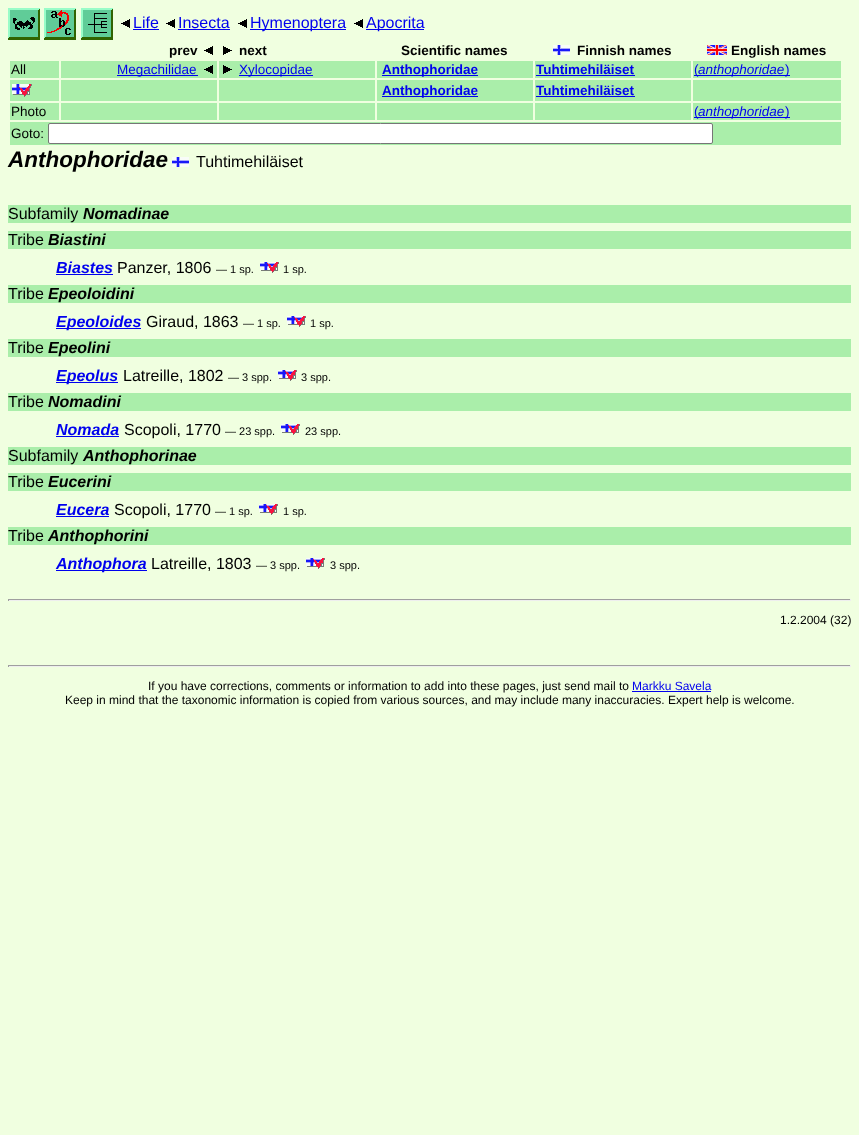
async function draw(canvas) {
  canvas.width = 859;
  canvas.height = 1135;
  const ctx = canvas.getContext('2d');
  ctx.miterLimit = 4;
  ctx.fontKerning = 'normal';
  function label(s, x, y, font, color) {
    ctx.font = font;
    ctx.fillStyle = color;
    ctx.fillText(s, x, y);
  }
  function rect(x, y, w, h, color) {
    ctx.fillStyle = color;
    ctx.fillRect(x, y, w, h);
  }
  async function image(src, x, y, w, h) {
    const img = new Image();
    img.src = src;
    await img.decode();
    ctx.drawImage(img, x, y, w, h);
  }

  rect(0, 0, 859, 1135, '#f0ffe0');
  await image('assets/img1.png', 8, 8, 32, 32);
  await image('assets/img2.png', 44, 8, 32, 32);
  await image('assets/img3.png', 81, 8, 32, 32);
  await image('assets/img4.png', 121, 19, 9, 9);
  label('Life', 133, 28, '16px Liberation Sans', '#00e');
  rect(133, 29, 26, 1, '#00e');
  await image('assets/img4.png', 166, 19, 9, 9);
  label('Insecta', 178, 28, '16px Liberation Sans', '#00e');
  rect(178, 29, 52, 1, '#00e');
  await image('assets/img4.png', 238, 19, 9, 9);
  rect(250, 29, 96, 1, '#00e');
  label('Hymenoptera', 250, 28, '16px Liberation Sans', '#00e');
  await image('assets/img4.png', 354, 19, 9, 9);
  rect(366, 29, 58, 1, '#00e');
  label('Apocrita', 366, 28, '16px Liberation Sans', '#00e');
  label('prev', 169, 55, 'bold 13.5px Liberation Sans', '#000');
  await image('assets/img4.png', 204, 46, 9, 9);
  await image('assets/img5.png', 223, 46, 9, 9);
  label('next', 239, 55, 'bold 13.5px Liberation Sans', '#000');
  label('Scientific names', 401, 55, 'bold 13.5px Liberation Sans', '#000');
  await image('assets/img6.png', 553, 45, 17, 10);
  label('Finnish names', 577, 55, 'bold 13.5px Liberation Sans', '#000');
  await image('assets/img7.png', 707, 45, 20, 10);
  label('English names', 731, 55, 'bold 13.5px Liberation Sans', '#000');
  rect(10, 61, 49, 17, '#aea');
  label('All', 11, 74, '13.5px Liberation Sans', '#000');
  rect(61, 61, 156, 17, '#aea');
  rect(117, 75, 81, 1, '#00e');
  label('Megachilidae', 117, 74, '13.5px Liberation Sans', '#00e');
  await image('assets/img8.png', 204, 65, 9, 9);
  rect(219, 61, 156, 17, '#aea');
  await image('assets/img9.png', 223, 65, 9, 9);
  rect(239, 75, 74, 1, '#00e');
  label('Xylocopidae', 239, 74, '13.5px Liberation Sans', '#00e');
  rect(377, 61, 156, 17, '#aea');
  rect(382, 75, 96, 1, '#00e');
  label('Anthophoridae', 382, 74, 'bold 13.5px Liberation Sans', '#00e');
  rect(535, 61, 156, 17, '#aea');
  label('Tuhtimehiläiset', 536, 74, 'bold 13.5px Liberation Sans', '#00e');
  rect(536, 75, 99, 1, '#00e');
  rect(693, 61, 148, 17, '#aea');
  rect(694, 75, 4, 1, '#00e');
  label('(', 694, 74, '13.5px Liberation Sans', '#00e');
  rect(698, 75, 92, 1, '#00e');
  label('anthophoridae', 698, 74, 'italic 13.5px Liberation Sans', '#00e');
  label(')', 785, 74, '13.5px Liberation Sans', '#00e');
  rect(10, 80, 49, 21, '#aea');
  await image('assets/img10.png', 12, 84, 20, 13);
  rect(61, 80, 156, 21, '#aea');
  rect(219, 80, 156, 21, '#aea');
  rect(377, 80, 156, 21, '#aea');
  rect(382, 96, 96, 1, '#00e');
  label('Anthophoridae', 382, 95, 'bold 13.5px Liberation Sans', '#00e');
  rect(535, 80, 156, 21, '#aea');
  label('Tuhtimehiläiset', 536, 95, 'bold 13.5px Liberation Sans', '#00e');
  rect(536, 96, 99, 1, '#00e');
  rect(693, 80, 148, 21, '#aea');
  rect(10, 103, 49, 17, '#aea');
  label('Photo', 11, 116, '13.5px Liberation Sans', '#000');
  rect(61, 103, 156, 17, '#aea');
  rect(219, 103, 156, 17, '#aea');
  rect(377, 103, 156, 17, '#aea');
  rect(535, 103, 156, 17, '#aea');
  rect(693, 103, 148, 17, '#aea');
  rect(694, 117, 4, 1, '#00e');
  label('(', 694, 116, '13.5px Liberation Sans', '#00e');
  rect(698, 117, 92, 1, '#00e');
  label('anthophoridae', 698, 116, 'italic 13.5px Liberation Sans', '#00e');
  label(')', 785, 116, '13.5px Liberation Sans', '#00e');
  rect(10, 122, 831, 23, '#aea');
  label('Goto:', 11, 138, '13.5px Liberation Sans', '#000');
  ctx.fillStyle = '#fff';
  ctx.beginPath();
  ctx.roundRect(48.5, 123.5, 664, 20, 1.5);
  ctx.fill();
  ctx.strokeStyle = '#767676';
  ctx.stroke();
  label('Anthophoridae', 8, 167, 'italic bold 22.5px Liberation Sans', '#000');
  await image('assets/img6.png', 172, 157, 17, 10);
  label('Tuhtimehiläiset', 196, 167, '16px Liberation Sans', '#000');
  rect(8, 205, 843, 18, '#aea');
  label('Subfamily', 8, 219, '16px Liberation Sans', '#000');
  label('Nomadinae', 83, 219, 'italic bold 16px Liberation Sans', '#000');
  rect(8, 231, 843, 18, '#aea');
  label('Tribe', 8, 245, '16px Liberation Sans', '#000');
  label('Biastini', 48, 245, 'italic bold 16px Liberation Sans', '#000');
  label('Biastes', 56, 273, 'italic bold 16px Liberation Sans', '#00e');
  rect(56, 274, 57, 1, '#00e');
  label('Panzer, 1806', 117, 273, '16px Liberation Sans', '#000');
  label('— 1 sp.', 216, 273, '11px Liberation Sans', '#000');
  await image('assets/img11.png', 260, 262, 19, 11);
  label('1 sp.', 283, 273, '11px Liberation Sans', '#000');
  rect(8, 285, 843, 18, '#aea');
  label('Tribe', 8, 299, '16px Liberation Sans', '#000');
  label('Epeoloidini', 48, 299, 'italic bold 16px Liberation Sans', '#000');
  rect(56, 328, 85, 1, '#00e');
  label('Epeoloides', 56, 327, 'italic bold 16px Liberation Sans', '#00e');
  label('Giraud, 1863', 146, 327, '16px Liberation Sans', '#000');
  label('— 1 sp.', 243, 327, '11px Liberation Sans', '#000');
  await image('assets/img11.png', 287, 316, 19, 11);
  label('1 sp.', 310, 327, '11px Liberation Sans', '#000');
  rect(8, 339, 843, 18, '#aea');
  label('Tribe', 8, 353, '16px Liberation Sans', '#000');
  label('Epeolini', 48, 353, 'italic bold 16px Liberation Sans', '#000');
  rect(56, 382, 62, 1, '#00e');
  label('Epeolus', 56, 381, 'italic bold 16px Liberation Sans', '#00e');
  label('Latreille, 1802', 123, 381, '16px Liberation Sans', '#000');
  label('— 3 spp.', 228, 381, '11px Liberation Sans', '#000');
  await image('assets/img11.png', 278, 370, 19, 11);
  label('3 spp.', 301, 381, '11px Liberation Sans', '#000');
  rect(8, 393, 843, 18, '#aea');
  label('Tribe', 8, 407, '16px Liberation Sans', '#000');
  label('Nomadini', 48, 407, 'italic bold 16px Liberation Sans', '#000');
  label('Nomada', 56, 435, 'italic bold 16px Liberation Sans', '#00e');
  rect(56, 436, 63, 1, '#00e');
  label('Scopoli, 1770', 124, 435, '16px Liberation Sans', '#000');
  label('— 23 spp.', 225, 435, '11px Liberation Sans', '#000');
  await image('assets/img11.png', 281, 424, 19, 11);
  label('23 spp.', 305, 435, '11px Liberation Sans', '#000');
  rect(8, 447, 843, 18, '#aea');
  label('Subfamily', 8, 461, '16px Liberation Sans', '#000');
  label('Anthophorinae', 83, 461, 'italic bold 16px Liberation Sans', '#000');
  rect(8, 473, 843, 18, '#aea');
  label('Tribe', 8, 487, '16px Liberation Sans', '#000');
  label('Eucerini', 48, 487, 'italic bold 16px Liberation Sans', '#000');
  label('Eucera', 56, 515, 'italic bold 16px Liberation Sans', '#00e');
  rect(56, 516, 53, 1, '#00e');
  label('Scopoli, 1770', 114, 515, '16px Liberation Sans', '#000');
  label('— 1 sp.', 215, 515, '11px Liberation Sans', '#000');
  await image('assets/img11.png', 259, 504, 19, 11);
  label('1 sp.', 283, 515, '11px Liberation Sans', '#000');
  rect(8, 527, 843, 18, '#aea');
  label('Tribe', 8, 541, '16px Liberation Sans', '#000');
  label('Anthophorini', 48, 541, 'italic bold 16px Liberation Sans', '#000');
  rect(56, 570, 91, 1, '#00e');
  label('Anthophora', 56, 569, 'italic bold 16px Liberation Sans', '#00e');
  label('Latreille, 1803', 151, 569, '16px Liberation Sans', '#000');
  label('— 3 spp.', 256, 569, '11px Liberation Sans', '#000');
  await image('assets/img11.png', 306, 558, 19, 11);
  label('3 spp.', 330, 569, '11px Liberation Sans', '#000');
  rect(8, 599, 843, 1, '#9f9f9f');
  rect(850, 599, 1, 2, '#eee');
  rect(8, 600, 843, 1, '#eee');
  rect(8, 599, 1, 2, '#9f9f9f');
  label('1.2.2004 (32)', 780, 624, '12px Liberation Sans', '#000');
  rect(8, 665, 843, 1, '#9f9f9f');
  rect(850, 665, 1, 2, '#eee');
  rect(8, 666, 843, 1, '#eee');
  rect(8, 665, 1, 2, '#9f9f9f');
  label('If you have corrections, comments or information to add into these pages, just send mail to', 148, 690, '12px Liberation Sans', '#000');
  label('Markku Savela', 632, 690, '12px Liberation Sans', '#00e');
  rect(632, 691, 79, 1, '#00e');
  label('Keep in mind that the taxonomic information is copied from various sources, and may include many inaccuracies. Expert help is welcome.', 65, 704, '12px Liberation Sans', '#000');
}

draw(document.querySelector('canvas'));
